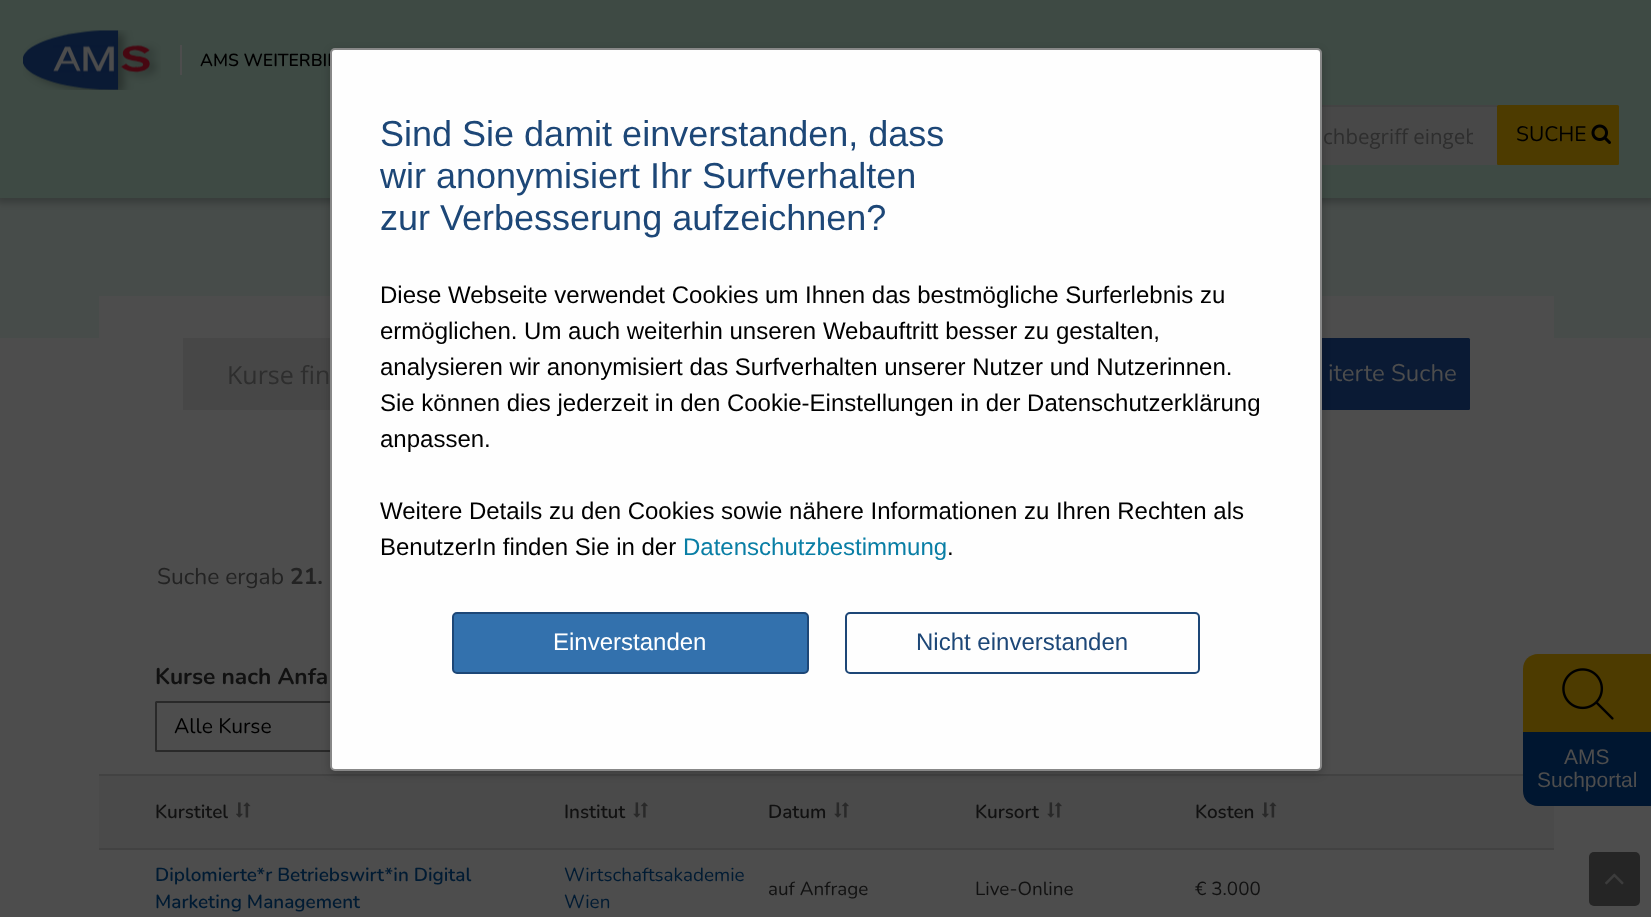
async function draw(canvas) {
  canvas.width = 1651;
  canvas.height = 917;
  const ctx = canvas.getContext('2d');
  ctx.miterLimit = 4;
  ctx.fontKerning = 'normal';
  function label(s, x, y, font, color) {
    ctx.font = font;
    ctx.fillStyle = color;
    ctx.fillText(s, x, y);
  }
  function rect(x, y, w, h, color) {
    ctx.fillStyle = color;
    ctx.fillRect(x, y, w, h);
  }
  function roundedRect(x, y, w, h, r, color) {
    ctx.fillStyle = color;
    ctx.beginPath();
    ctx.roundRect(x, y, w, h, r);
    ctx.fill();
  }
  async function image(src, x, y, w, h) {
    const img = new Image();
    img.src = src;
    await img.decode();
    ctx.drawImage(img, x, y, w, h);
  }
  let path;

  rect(0, 0, 1651, 917, '#4d4d4d');
  rect(0, 198, 1651, 140, '#474c4a');
  ctx.fillStyle = '#00000033';
  ctx.filter = 'blur(3px)';
  ctx.beginPath();
  ctx.rect(-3, -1, 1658, 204);
  ctx.fill();
  ctx.filter = 'none';
  rect(0, 0, 1651, 198, '#3e4a44');
  await image('assets/img1.png', 23, 30, 138, 60);
  rect(180, 45, 2, 30, '#4d4d4d');
  label('AMS WEITERBIL', 200, 66, '600 17.5px Nunito', '#000');
  rect(1322, 107, 175, 58, '#484848');
  rect(1322, 105, 175, 2, '#434343');
  ctx.save();
  ctx.beginPath();
  ctx.rect(1299, 122, 174, 28);
  ctx.clip();
  label('chbegriff eingeb', 1323, 144, '20.5px Open Sans', '#2e2e2e');
  ctx.restore();
  roundedRect(1497, 105, 122, 60, 1.5, '#4d3b00');
  label('SUCHE', 1516, 141, '21px Nunito', '#000');
  await image('assets/img2.png', 1591, 124, 20, 20);
  rect(99, 296, 1455, 42, '#4d4d4d');
  rect(183, 338, 147, 72, '#474747');
  roundedRect(1224, 338, 246, 72, 1.5, '#0a1a34');
  rect(99, 776, 1455, 72, '#4a4a4a');
  ctx.beginPath();
  ctx.roundRect(156, 702, 268, 49, 0.5);
  ctx.strokeStyle = '#292929';
  ctx.lineWidth = 2;
  ctx.stroke();
  rect(99, 774, 1424, 2, '#424242');
  ctx.fillStyle = '#00000033';
  ctx.filter = 'blur(4px)';
  ctx.beginPath();
  ctx.roundRect(330, 51, 992, 723, 5);
  ctx.fill();
  ctx.filter = 'none';
  ctx.fillStyle = '#fefefe';
  ctx.beginPath();
  ctx.roundRect(331, 49, 990, 721, 4);
  ctx.fill();
  ctx.strokeStyle = '#888';
  ctx.stroke();
  label('Sind Sie damit einverstanden, dass', 380, 146, '36px Liberation Sans', '#1d4777');
  label('wir anonymisiert Ihr Surfverhalten', 380, 188, '36px Liberation Sans', '#1d4777');
  label('zur Verbesserung aufzeichnen?', 380, 230, '36px Liberation Sans', '#1d4777');
  label('Diese Webseite verwendet Cookies um Ihnen das bestmögliche Surferlebnis zu', 380, 303, '24px Liberation Sans', '#000');
  label('ermöglichen. Um auch weiterhin unseren Webauftritt besser zu gestalten,', 380, 339, '24px Liberation Sans', '#000');
  label('analysieren wir anonymisiert das Surfverhalten unserer Nutzer und Nutzerinnen.', 380, 375, '24px Liberation Sans', '#000');
  label('Sie können dies jederzeit in den Cookie-Einstellungen in der Datenschutzerklärung', 380, 411, '24px Liberation Sans', '#000');
  label('anpassen.', 380, 447, '24px Liberation Sans', '#000');
  label('Weitere Details zu den Cookies sowie nähere Informationen zu Ihren Rechten als', 380, 519, '24px Liberation Sans', '#000');
  label('BenutzerIn finden Sie in der', 380, 555, '24px Liberation Sans', '#000');
  label('Datenschutzbestimmung', 683, 555, '24px Liberation Sans', '#097ea5');
  label('.', 947, 555, '24px Liberation Sans', '#000');
  ctx.fillStyle = '#3371ad';
  ctx.beginPath();
  ctx.roundRect(453, 613, 355, 60, 4);
  ctx.fill();
  ctx.strokeStyle = '#1d4777';
  ctx.stroke();
  label('Einverstanden', 553, 650, '24px Liberation Sans', '#fff');
  ctx.beginPath();
  ctx.roundRect(846, 613, 353, 60, 4);
  ctx.stroke();
  label('Nicht einverstanden', 916, 650, '24px Liberation Sans', '#1d4777');
  label('Kurse fin', 227, 384, '25px Open Sans', '#2e2e2e');
  label('iterte Suche', 1328, 381, '24px Nunito', '#4d4d4d');
  label('Suche ergab', 157, 584, '22.75px Nunito', '#232323');
  label('21.', 290, 584, 'bold 22.75px Nunito', '#232323');
  label('Kurse nach Anfa', 155, 684, 'bold 22.75px Nunito', '#111');
  label('Alle Kurse', 174, 733, '21px Nunito', '#000');
  label('Kurstitel', 155, 818, '600 18.9px Nunito', '#111');
  await image('assets/img3.png', 236, 802, 15, 16);
  label('Institut', 564, 818, '600 18.9px Nunito', '#111');
  await image('assets/img4.png', 633, 802, 15, 16);
  label('Datum', 768, 818, '600 18.9px Nunito', '#111');
  await image('assets/img4.png', 834, 802, 15, 16);
  label('Kursort', 975, 818, '600 18.9px Nunito', '#111');
  await image('assets/img4.png', 1047, 802, 15, 16);
  label('Kosten', 1195, 818, '600 18.9px Nunito', '#111');
  await image('assets/img3.png', 1262, 802, 15, 16);
  rect(99, 848, 1455, 2, '#424242');
  label('Diplomierte*r Betriebswirt*in Digital', 155, 881, '600 18.9px Nunito', '#001b33');
  label('Marketing Management', 155, 908, '600 18.9px Nunito', '#001b33');
  label('Wirtschaftsakademie', 564, 881, '18.9px Nunito', '#001b33');
  label('Wien', 564, 908, '18.9px Nunito', '#001b33');
  label('auf Anfrage', 768, 895, '18.9px Nunito', '#111');
  label('Live-Online', 975, 895, '18.9px Nunito', '#111');
  label('€ 3.000', 1195, 895, '18.9px Nunito', '#111');
  ctx.fillStyle = '#4d3b00';
  path = new Path2D('M1538 654H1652V732H1523V669C1523 660.5 1529.5 654 1538 654Z');
  ctx.fill(path);
  await image('assets/img5.png', 1562, 668, 52, 52);
  ctx.fillStyle = '#001630';
  path = new Path2D('M1523 732H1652V806H1538C1529.5 806 1523 799.5 1523 791Z');
  ctx.fill(path);
  label('AMS', 1564, 764, '21px Liberation Sans', '#4d4d4d');
  label('Suchportal', 1537, 787, '21px Liberation Sans', '#4d4d4d');
  roundedRect(1589, 852, 51, 54, 5, '#252525');
  await image('assets/img6.png', 1605, 873, 19, 12);
}

draw(document.querySelector('canvas'));
